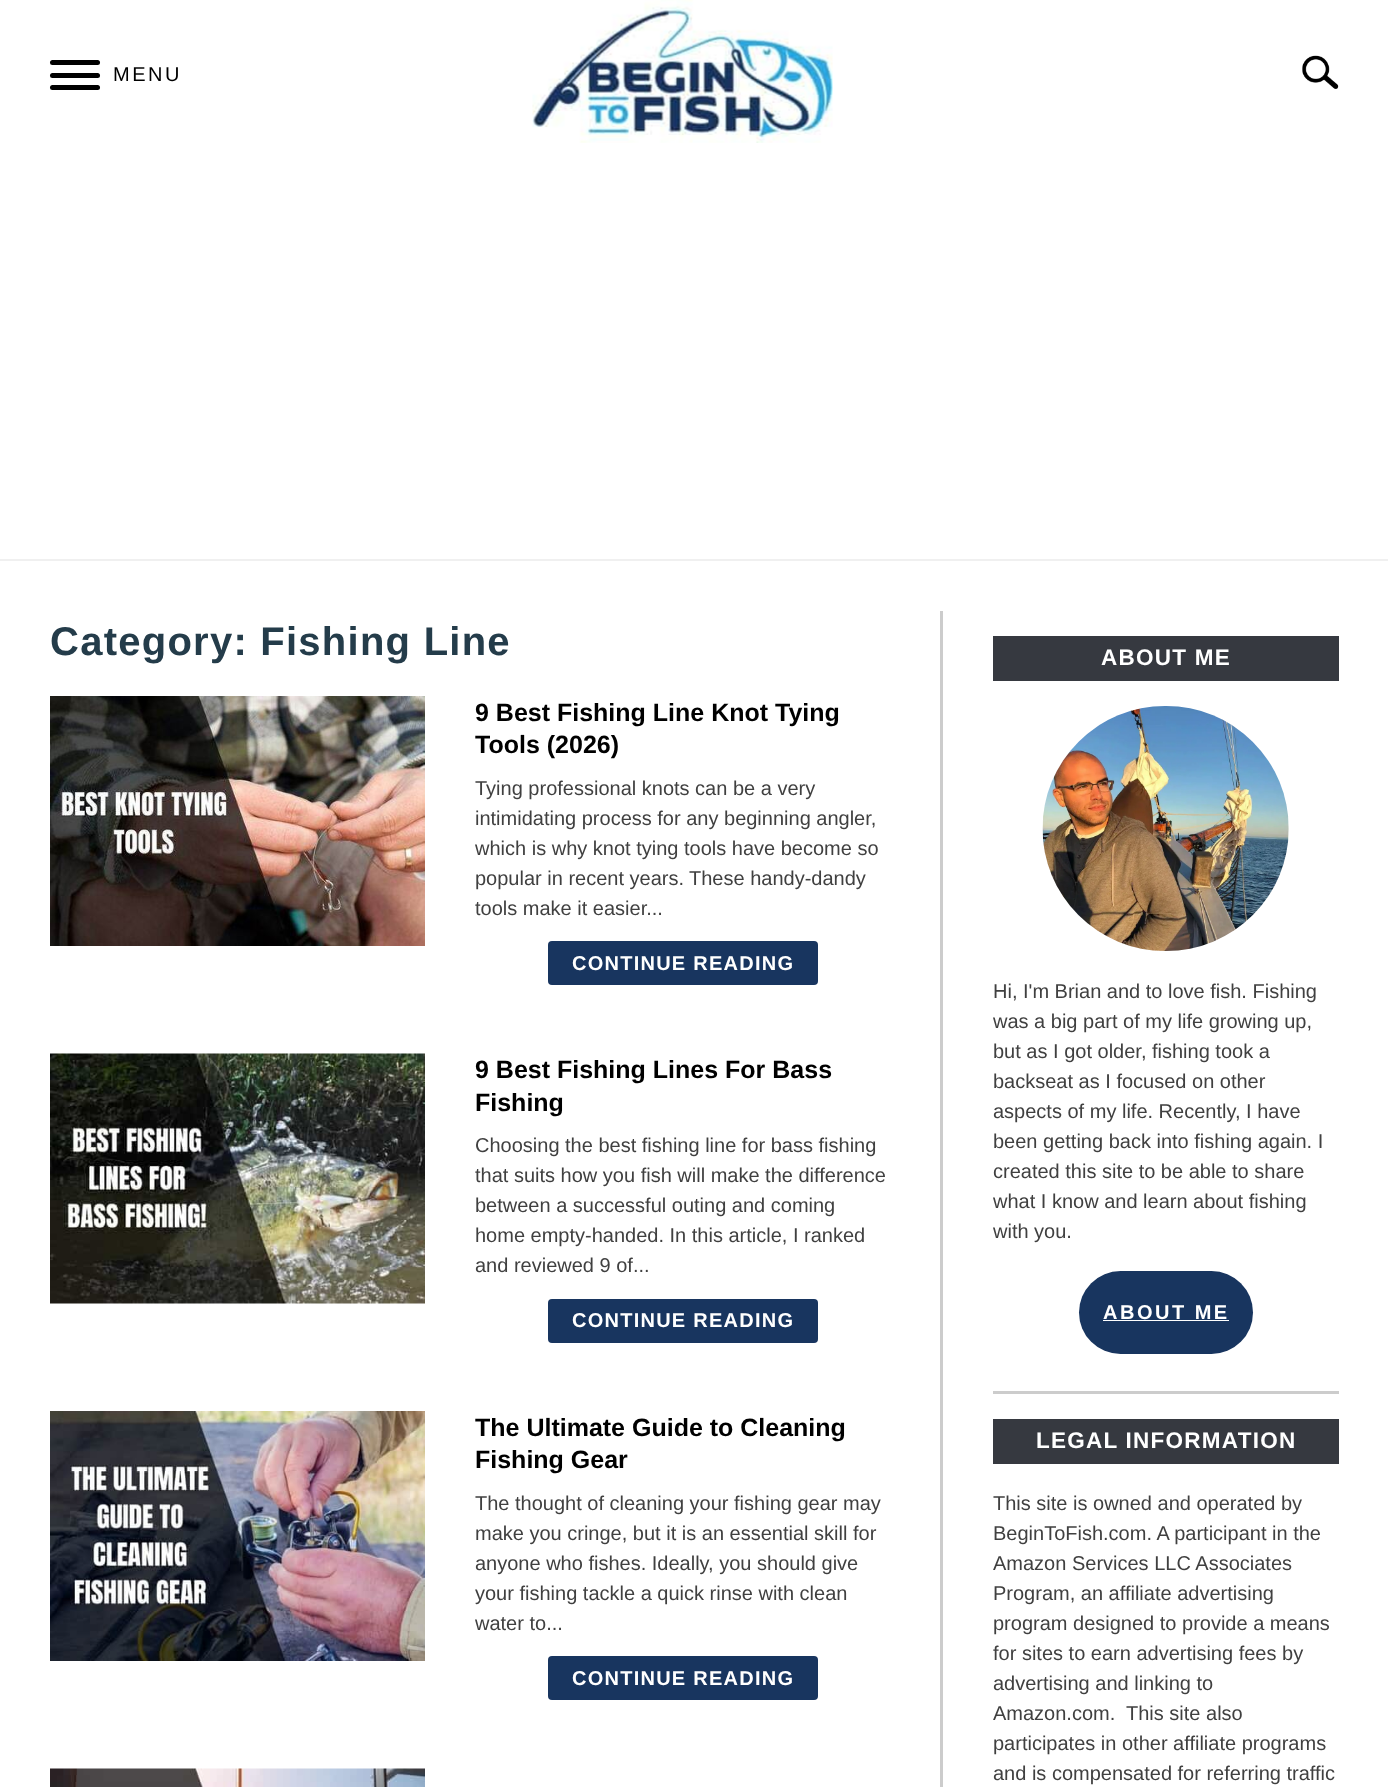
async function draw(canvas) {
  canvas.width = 1388;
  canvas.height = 1787;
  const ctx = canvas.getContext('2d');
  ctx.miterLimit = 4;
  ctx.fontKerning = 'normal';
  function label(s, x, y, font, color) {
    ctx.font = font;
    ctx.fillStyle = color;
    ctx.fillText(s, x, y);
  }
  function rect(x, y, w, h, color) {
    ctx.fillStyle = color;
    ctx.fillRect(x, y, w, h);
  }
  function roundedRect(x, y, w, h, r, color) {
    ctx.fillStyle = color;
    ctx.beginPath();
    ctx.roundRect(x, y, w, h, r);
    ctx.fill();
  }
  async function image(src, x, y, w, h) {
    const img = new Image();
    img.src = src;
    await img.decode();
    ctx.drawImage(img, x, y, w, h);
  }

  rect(0, 0, 1388, 1787, '#fff');
  roundedRect(50, 73, 50, 5, 2.5, '#000');
  roundedRect(50, 60, 50, 5, 2.5, '#000');
  roundedRect(50, 85, 50, 5, 2.5, '#000');
  ctx.letterSpacing = '2.5px';
  label('MENU', 113, 81, '20px Liberation Sans', '#000');
  await image('assets/img1.png', 532, 0, 301, 143);
  await image('assets/img2.png', 1302, 55, 37, 34);
  rect(0, 559, 1388, 2, '#f0f0f0');
  ctx.letterSpacing = '1.25px';
  label('Category: Fishing Line', 50, 655, 'bold 40px Liberation Sans', '#243c4a');
  await image('assets/img3.png', 50, 696, 375, 250);
  ctx.letterSpacing = '0px';
  label('9 Best Fishing Line Knot Tying', 475, 721, 'bold 25px Liberation Sans', '#000');
  label('Tools (2026)', 475, 753, 'bold 25px Liberation Sans', '#000');
  label('Tying professional knots can be a very', 475, 795, '20px Liberation Sans', '#404040');
  label('intimidating process for any beginning angler,', 475, 825, '20px Liberation Sans', '#404040');
  label('which is why knot tying tools have become so', 475, 855, '20px Liberation Sans', '#404040');
  label('popular in recent years.', 475, 885, '20px Liberation Sans', '#404040');
  label('These handy-dandy', 689, 885, '20px Liberation Sans', '#404040');
  label('tools make it easier...', 475, 915, '20px Liberation Sans', '#404040');
  roundedRect(548, 941, 270, 44, 4, '#18355f');
  ctx.letterSpacing = '1.25px';
  label('CONTINUE READING', 572, 970, 'bold 20px Liberation Sans', '#fff');
  await image('assets/img4.png', 50, 1053, 375, 251);
  ctx.letterSpacing = '0px';
  label('9 Best Fishing Lines For Bass', 475, 1078, 'bold 25px Liberation Sans', '#000');
  label('Fishing', 475, 1111, 'bold 25px Liberation Sans', '#000');
  label('Choosing the best fishing line for bass fishing', 475, 1152, '20px Liberation Sans', '#404040');
  label('that suits how you fish will make the difference', 475, 1182, '20px Liberation Sans', '#404040');
  label('between a successful outing and coming', 475, 1212, '20px Liberation Sans', '#404040');
  label('home empty-handed. In this article, I ranked', 475, 1242, '20px Liberation Sans', '#404040');
  label('and reviewed 9 of...', 475, 1272, '20px Liberation Sans', '#404040');
  roundedRect(548, 1299, 270, 44, 4, '#18355f');
  ctx.letterSpacing = '1.25px';
  label('CONTINUE READING', 572, 1327, 'bold 20px Liberation Sans', '#fff');
  await image('assets/img5.png', 50, 1411, 375, 250);
  ctx.letterSpacing = '0px';
  label('The Ultimate Guide to Cleaning', 475, 1436, 'bold 25px Liberation Sans', '#000');
  label('Fishing Gear', 475, 1468, 'bold 25px Liberation Sans', '#000');
  label('The thought of cleaning your fishing gear may', 475, 1510, '20px Liberation Sans', '#404040');
  label('make you cringe, but it is an essential skill for', 475, 1540, '20px Liberation Sans', '#404040');
  label('anyone who fishes. Ideally, you should give', 475, 1570, '20px Liberation Sans', '#404040');
  label('your fishing tackle a quick rinse with clean', 475, 1600, '20px Liberation Sans', '#404040');
  label('water to...', 475, 1630, '20px Liberation Sans', '#404040');
  roundedRect(548, 1656, 270, 44, 4, '#18355f');
  ctx.letterSpacing = '1.25px';
  label('CONTINUE READING', 572, 1685, 'bold 20px Liberation Sans', '#fff');
  await image('assets/img6.png', 50, 1768, 375, 19);
  rect(940, 611, 3, 1176, '#ccc');
  rect(993, 636, 346, 45, '#363940');
  label('ABOUT ME', 1101, 665, 'bold 22.5px Liberation Sans', '#fff');
  await image('assets/img7.png', 1042, 706, 247, 245);
  ctx.letterSpacing = '0px';
  label('Hi, I\'m Brian and to love fish. Fishing', 993, 998, '20px Liberation Sans', '#404040');
  label('was a big part of my life growing up,', 993, 1028, '20px Liberation Sans', '#404040');
  label('but as I got older, fishing took a', 993, 1058, '20px Liberation Sans', '#404040');
  label('backseat as I focused on other', 993, 1088, '20px Liberation Sans', '#404040');
  label('aspects of my life. Recently, I have', 993, 1118, '20px Liberation Sans', '#404040');
  label('been getting back into fishing again. I', 993, 1148, '20px Liberation Sans', '#404040');
  label('created this site to be able to share', 993, 1178, '20px Liberation Sans', '#404040');
  label('what I know and learn about fishing', 993, 1208, '20px Liberation Sans', '#404040');
  label('with you.', 993, 1238, '20px Liberation Sans', '#404040');
  roundedRect(1079, 1271, 174, 83, 41.5, '#18355f');
  ctx.letterSpacing = '2.5px';
  label('ABOUT ME', 1103, 1319, 'bold 20px Liberation Sans', '#fff');
  rect(1103, 1320, 126, 1, '#fff');
  rect(993, 1391, 346, 3, '#ccc');
  rect(993, 1419, 346, 45, '#363940');
  ctx.letterSpacing = '1.25px';
  label('LEGAL INFORMATION', 1036, 1448, 'bold 22.5px Liberation Sans', '#fff');
  ctx.letterSpacing = '0px';
  label('This site is owned and operated by', 993, 1510, '20px Liberation Sans', '#404040');
  label('BeginToFish.com. A participant in the', 993, 1540, '20px Liberation Sans', '#404040');
  label('Amazon Services LLC Associates', 993, 1570, '20px Liberation Sans', '#404040');
  label('Program, an affiliate advertising', 993, 1600, '20px Liberation Sans', '#404040');
  label('program designed to provide a means', 993, 1630, '20px Liberation Sans', '#404040');
  label('for sites to earn advertising fees by', 993, 1660, '20px Liberation Sans', '#404040');
  label('advertising and linking to', 993, 1690, '20px Liberation Sans', '#404040');
  label('Amazon.com.  This site also', 993, 1720, '20px Liberation Sans', '#404040');
  label('participates in other affiliate programs', 993, 1750, '20px Liberation Sans', '#404040');
  label('and is compensated for referring traffic', 993, 1780, '20px Liberation Sans', '#404040');
}

draw(document.querySelector('canvas'));
